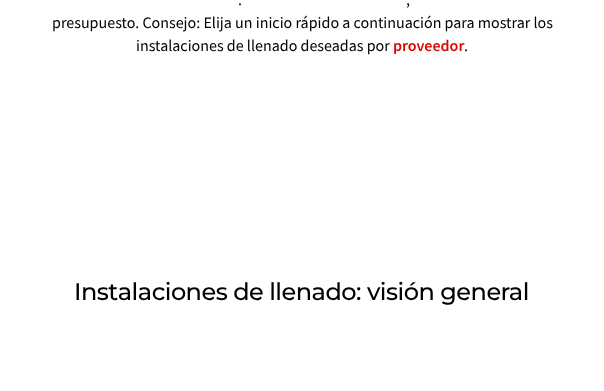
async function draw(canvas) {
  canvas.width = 604;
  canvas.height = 391;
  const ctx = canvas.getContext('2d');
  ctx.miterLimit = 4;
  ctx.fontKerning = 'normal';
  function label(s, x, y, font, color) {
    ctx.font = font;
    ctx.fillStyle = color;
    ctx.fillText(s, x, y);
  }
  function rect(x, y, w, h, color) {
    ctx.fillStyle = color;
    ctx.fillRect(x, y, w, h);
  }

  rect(0, 0, 604, 391, '#fff');
  label('.', 238, 5, '16px Source Sans Pro', '#000');
  label(',', 406, 5, '16px Source Sans Pro', '#000');
  label('presupuesto. Consejo: Elija un inicio rápido a continuación para mostrar los', 52, 28, '16px Source Sans Pro', '#000');
  label('instalaciones de llenado deseadas por', 136, 51, '16px Source Sans Pro', '#000');
  label('proveedor', 393, 51, '600 16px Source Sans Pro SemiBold', '#dd0700');
  label('.', 464, 51, '16px Source Sans Pro', '#000');
  ctx.letterSpacing = '-0.5px';
  label('Instalaciones de llenado: visión general', 74, 300, '100 24px Montserrat', '#000');
}

draw(document.querySelector('canvas'));
